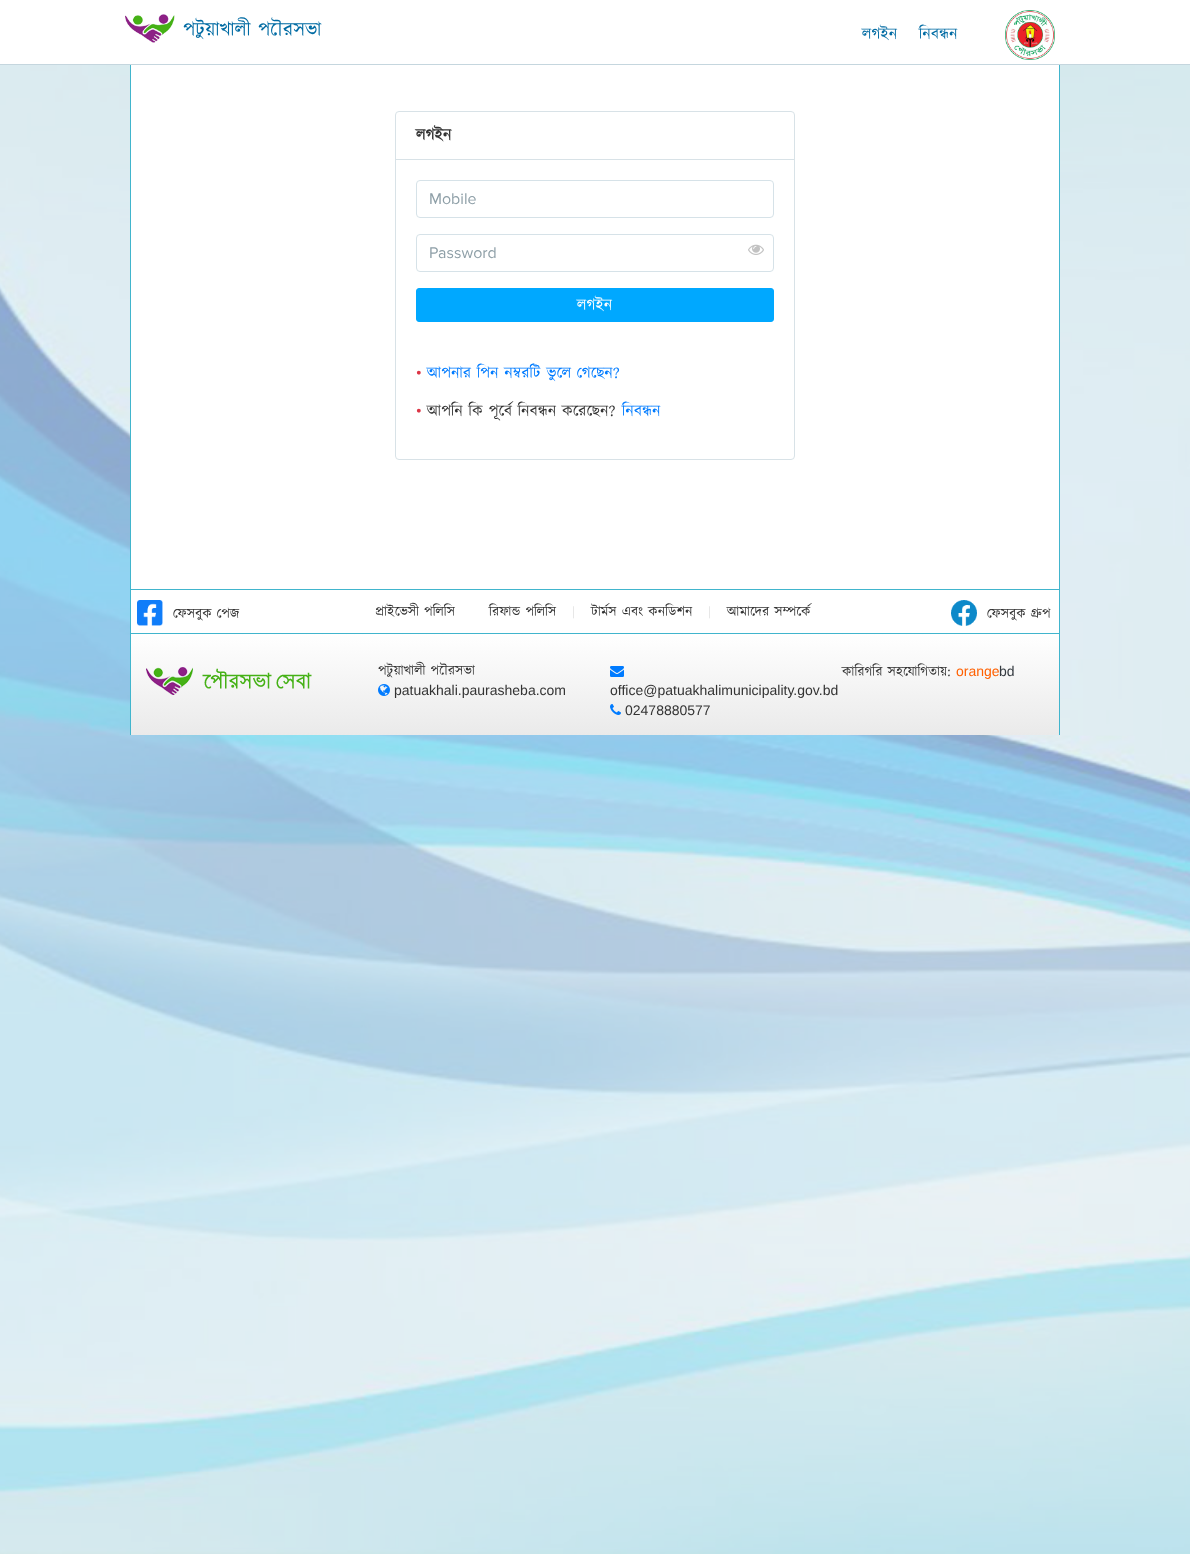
async function draw(canvas) {
  canvas.width = 1190;
  canvas.height = 1554;
  const ctx = canvas.getContext('2d');
  ctx.miterLimit = 4;
  ctx.fontKerning = 'normal';
  function label(s, x, y, font, color) {
    ctx.font = font;
    ctx.fillStyle = color;
    ctx.fillText(s, x, y);
  }
  function rect(x, y, w, h, color) {
    ctx.fillStyle = color;
    ctx.fillRect(x, y, w, h);
  }
  async function image(src, x, y, w, h) {
    const img = new Image();
    img.src = src;
    await img.decode();
    ctx.drawImage(img, x, y, w, h);
  }
  let gradient;

  rect(0, 0, 1190, 1554, '#eceff4');
  rect(0, 0, 1190, 64, '#fff');
  rect(0, 64, 1190, 1, '#c5d6de');
  await image('assets/img1.png', 125, 14, 50, 29);
  label('পটুয়াখালী পৌরসভা', 183, 36, '20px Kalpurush', '#006ba3');
  label('লগইন', 862, 39, '16px Kalpurush', '#006ba3');
  label('নিবন্ধন', 919, 39, '16px Kalpurush', '#006ba3');
  await image('assets/img2.png', 1005, 10, 50, 50);
  await image('assets/img3.png', 0, 65, 1190, 1489);
  rect(131, 65, 928, 524, '#fff');
  rect(1059, 65, 1, 670, '#41b5cd');
  rect(130, 65, 1, 670, '#41b5cd');
  ctx.beginPath();
  ctx.roundRect(395.5, 111.5, 399, 348, 3.5);
  ctx.strokeStyle = '#d8e2e7';
  ctx.stroke();
  rect(396, 159, 398, 1, '#d8e2e7');
  label('লগইন', 416, 140, 'bold 16px Kalpurush', '#333');
  ctx.beginPath();
  ctx.roundRect(416.5, 180.5, 357, 37, 3.5);
  ctx.strokeStyle = '#d6e2e8';
  ctx.stroke();
  label('Mobile', 429, 204, '16px Proxima Nova', '#8e9fa7');
  ctx.beginPath();
  ctx.roundRect(416.5, 234.5, 357, 37, 3.5);
  ctx.stroke();
  label('Password', 429, 258, '16px Proxima Nova', '#8e9fa7');
  await image('assets/img4.png', 748, 244, 16, 11);
  ctx.fillStyle = '#00a8ff';
  ctx.beginPath();
  ctx.roundRect(416.5, 288.5, 357, 33, 2.5);
  ctx.fill();
  ctx.strokeStyle = '#00a8ff';
  ctx.stroke();
  label('লগইন', 577, 310, '16px Kalpurush', '#fff');
  label('•', 416, 378, '16px Liberation Serif', '#dc3545');
  label('আপনার পিন নম্বরটি ভুলে গেছেন?', 427, 378, '16px Kalpurush', '#007bff');
  label('•', 416, 416, '16px Liberation Serif', '#dc3545');
  label('আপনি কি পূর্বে নিবন্ধন করেছেন?', 427, 416, '16px Kalpurush', '#333');
  label('নিবন্ধন', 622, 416, '16px Kalpurush', '#007bff');
  rect(131, 590, 928, 43, '#fff');
  rect(131, 589, 928, 1, '#41b5cd');
  rect(131, 633, 928, 1, '#41b5cd');
  await image('assets/img5.png', 137, 600, 26, 26);
  label('ফেসবুক পেজ', 173, 618, '14px Kalpurush', '#333');
  label('প্রাইভেসী পলিসি', 375, 616, '14px Kalpurush', '#333');
  label('রিফান্ড পলিসি', 489, 616, '14px Kalpurush', '#333');
  label('|', 572, 616, '12px Kalpurush', '#e3e3e3');
  label('টার্মস এবং কনডিশন', 591, 616, '14px Kalpurush', '#333');
  label('|', 708, 616, '12px Kalpurush', '#e3e3e3');
  label('আমাদের সম্পর্কে', 727, 616, '14px Kalpurush', '#333');
  await image('assets/img6.png', 951, 600, 26, 26);
  label('ফেসবুক গ্রুপ', 987, 618, '14px Kalpurush', '#333');
  gradient = ctx.createLinearGradient(595, 634, 595, 735);
  gradient.addColorStop(0, '#fff');
  gradient.addColorStop(1, '#eaeaea');
  ctx.fillStyle = gradient;
  ctx.fillRect(131, 634, 928, 101);
  await image('assets/img7.png', 146, 667, 166, 28);
  label('পটুয়াখালী পৌরসভা', 378, 675, '14px Kalpurush', '#333');
  await image('assets/img8.png', 378, 684, 12, 12);
  label('patuakhali.paurasheba.com', 394, 695, '14px Liberation Sans', '#333');
  label('কারিগরি সহযোগিতায়:', 842, 676, '14px Kalpurush', '#333');
  label('orange', 956, 676, '14px Liberation Sans', '#ff6000');
  label('bd', 999, 676, '14px Liberation Sans', '#343a40');
  await image('assets/img9.png', 610, 666, 14, 11);
  label('office@patuakhalimunicipality.gov.bd', 610, 695, '14px Liberation Sans', '#333');
  await image('assets/img10.png', 610, 704, 11, 11);
  label('02478880577', 625, 715, '14px Liberation Sans', '#333');
}

draw(document.querySelector('canvas'));
